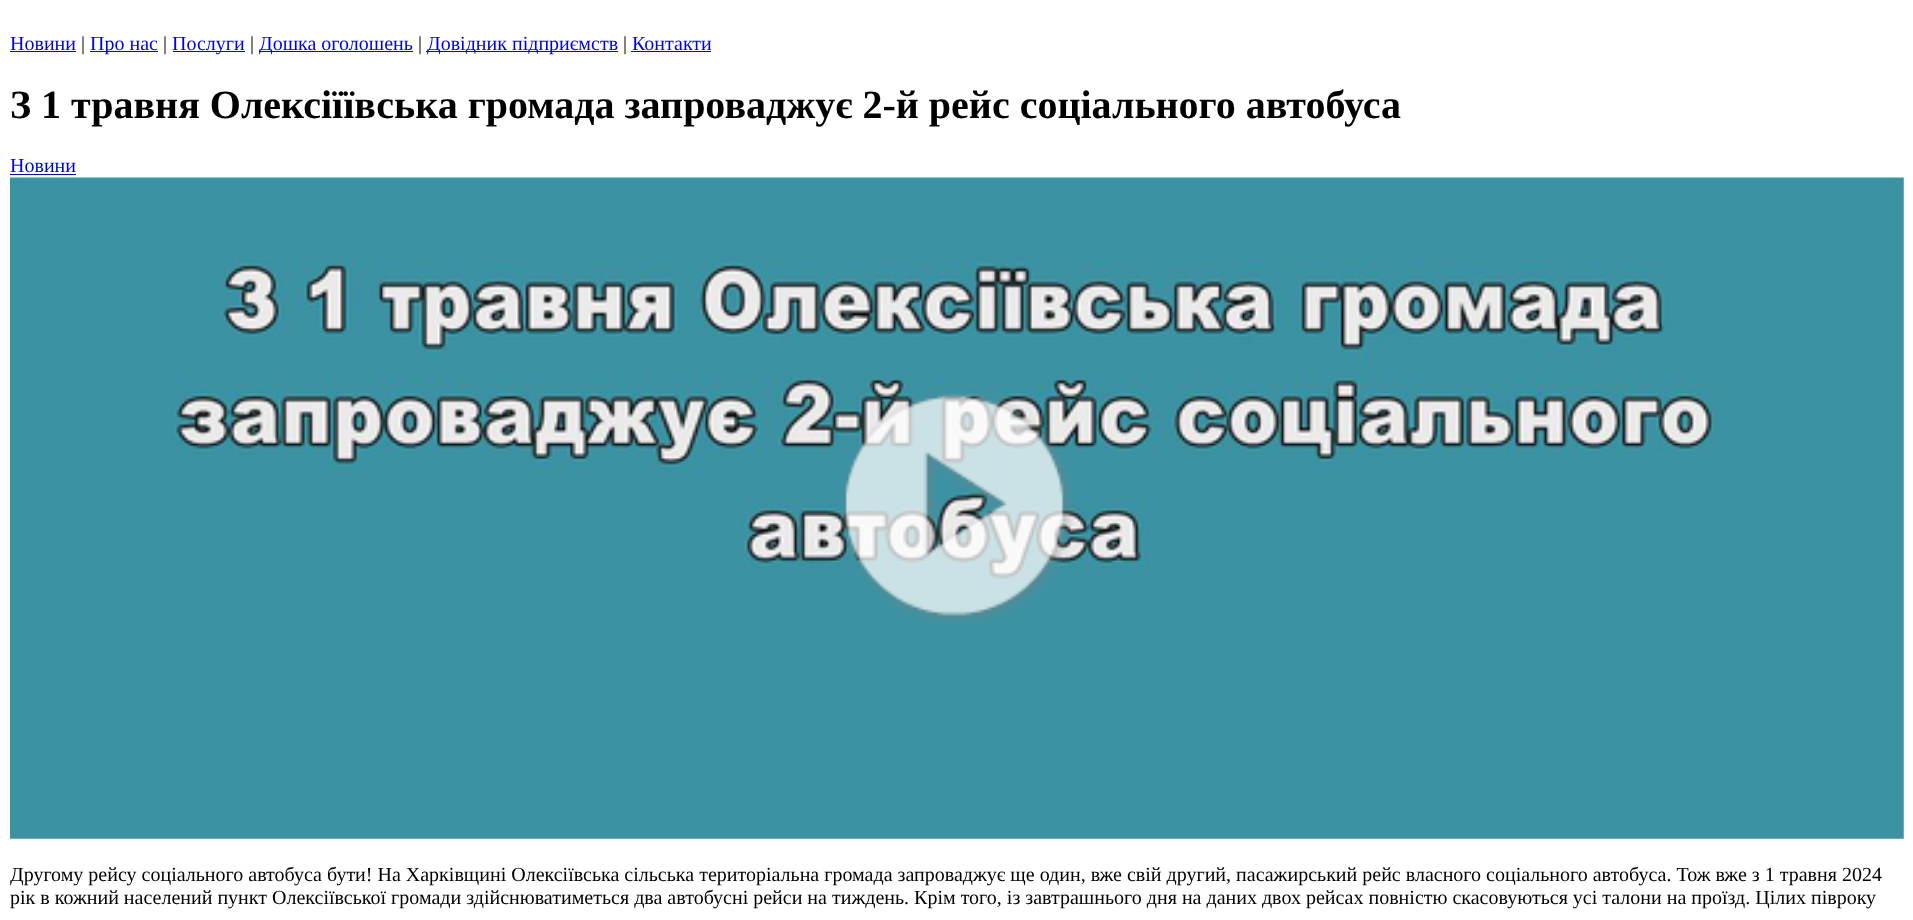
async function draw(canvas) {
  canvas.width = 1913;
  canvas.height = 920;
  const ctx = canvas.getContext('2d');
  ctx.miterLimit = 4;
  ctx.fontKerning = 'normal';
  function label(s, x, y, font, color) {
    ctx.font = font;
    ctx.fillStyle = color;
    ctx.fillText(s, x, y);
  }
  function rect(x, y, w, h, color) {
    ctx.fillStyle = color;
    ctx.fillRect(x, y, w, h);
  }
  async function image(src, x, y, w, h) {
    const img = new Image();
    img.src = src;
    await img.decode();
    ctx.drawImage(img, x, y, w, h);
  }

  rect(0, 0, 1913, 920, '#fff');
  label('Новини', 10, 50, '20px Liberation Serif', '#00e');
  rect(10, 51, 66, 1, '#00e');
  label('|', 81, 50, '20px Liberation Serif', '#000');
  rect(90, 51, 68, 1, '#00e');
  label('Про нас', 90, 50, '20px Liberation Serif', '#00e');
  label('|', 163, 50, '20px Liberation Serif', '#000');
  rect(173, 51, 72, 1, '#00e');
  label('Послуги', 172, 50, '20px Liberation Serif', '#00e');
  label('|', 250, 50, '20px Liberation Serif', '#000');
  rect(259, 51, 154, 1, '#00e');
  label('Дошка оголошень', 259, 50, '20px Liberation Serif', '#00e');
  label('|', 418, 50, '20px Liberation Serif', '#000');
  rect(426, 51, 192, 1, '#00e');
  label('Довідник підприємств', 427, 50, '20px Liberation Serif', '#00e');
  label('|', 623, 50, '20px Liberation Serif', '#000');
  label('Контакти', 632, 50, '20px Liberation Serif', '#00e');
  rect(631, 51, 80, 1, '#00e');
  label('З 1 травня Олексіїївська громада запроваджує 2-й рейс соціального автобуса', 10, 118, 'bold 40px Liberation Serif', '#000');
  label('Новини', 10, 172, '20px Liberation Serif', '#00e');
  rect(10, 174, 66, 1, '#00e');
  await image('assets/img1.png', 10, 177, 1894, 662);
  label('Другому рейсу соціального автобуса бути! На Харківщині Олексіївська сільська територіальна громада запроваджує ще один, вже свій другий, пасажирський рейс власного соціального автобуса. Тож вже з 1 травня 2024', 10, 881, '20px Liberation Serif', '#000');
  label('рік в кожний населений пункт Олексіївської громади здійснюватиметься два автобусні рейси на тиждень. Крім того, із завтрашнього дня на даних двох рейсах повністю скасовуються усі талони на проїзд. Цілих півроку', 10, 904, '20px Liberation Serif', '#000');
}

draw(document.querySelector('canvas'));
